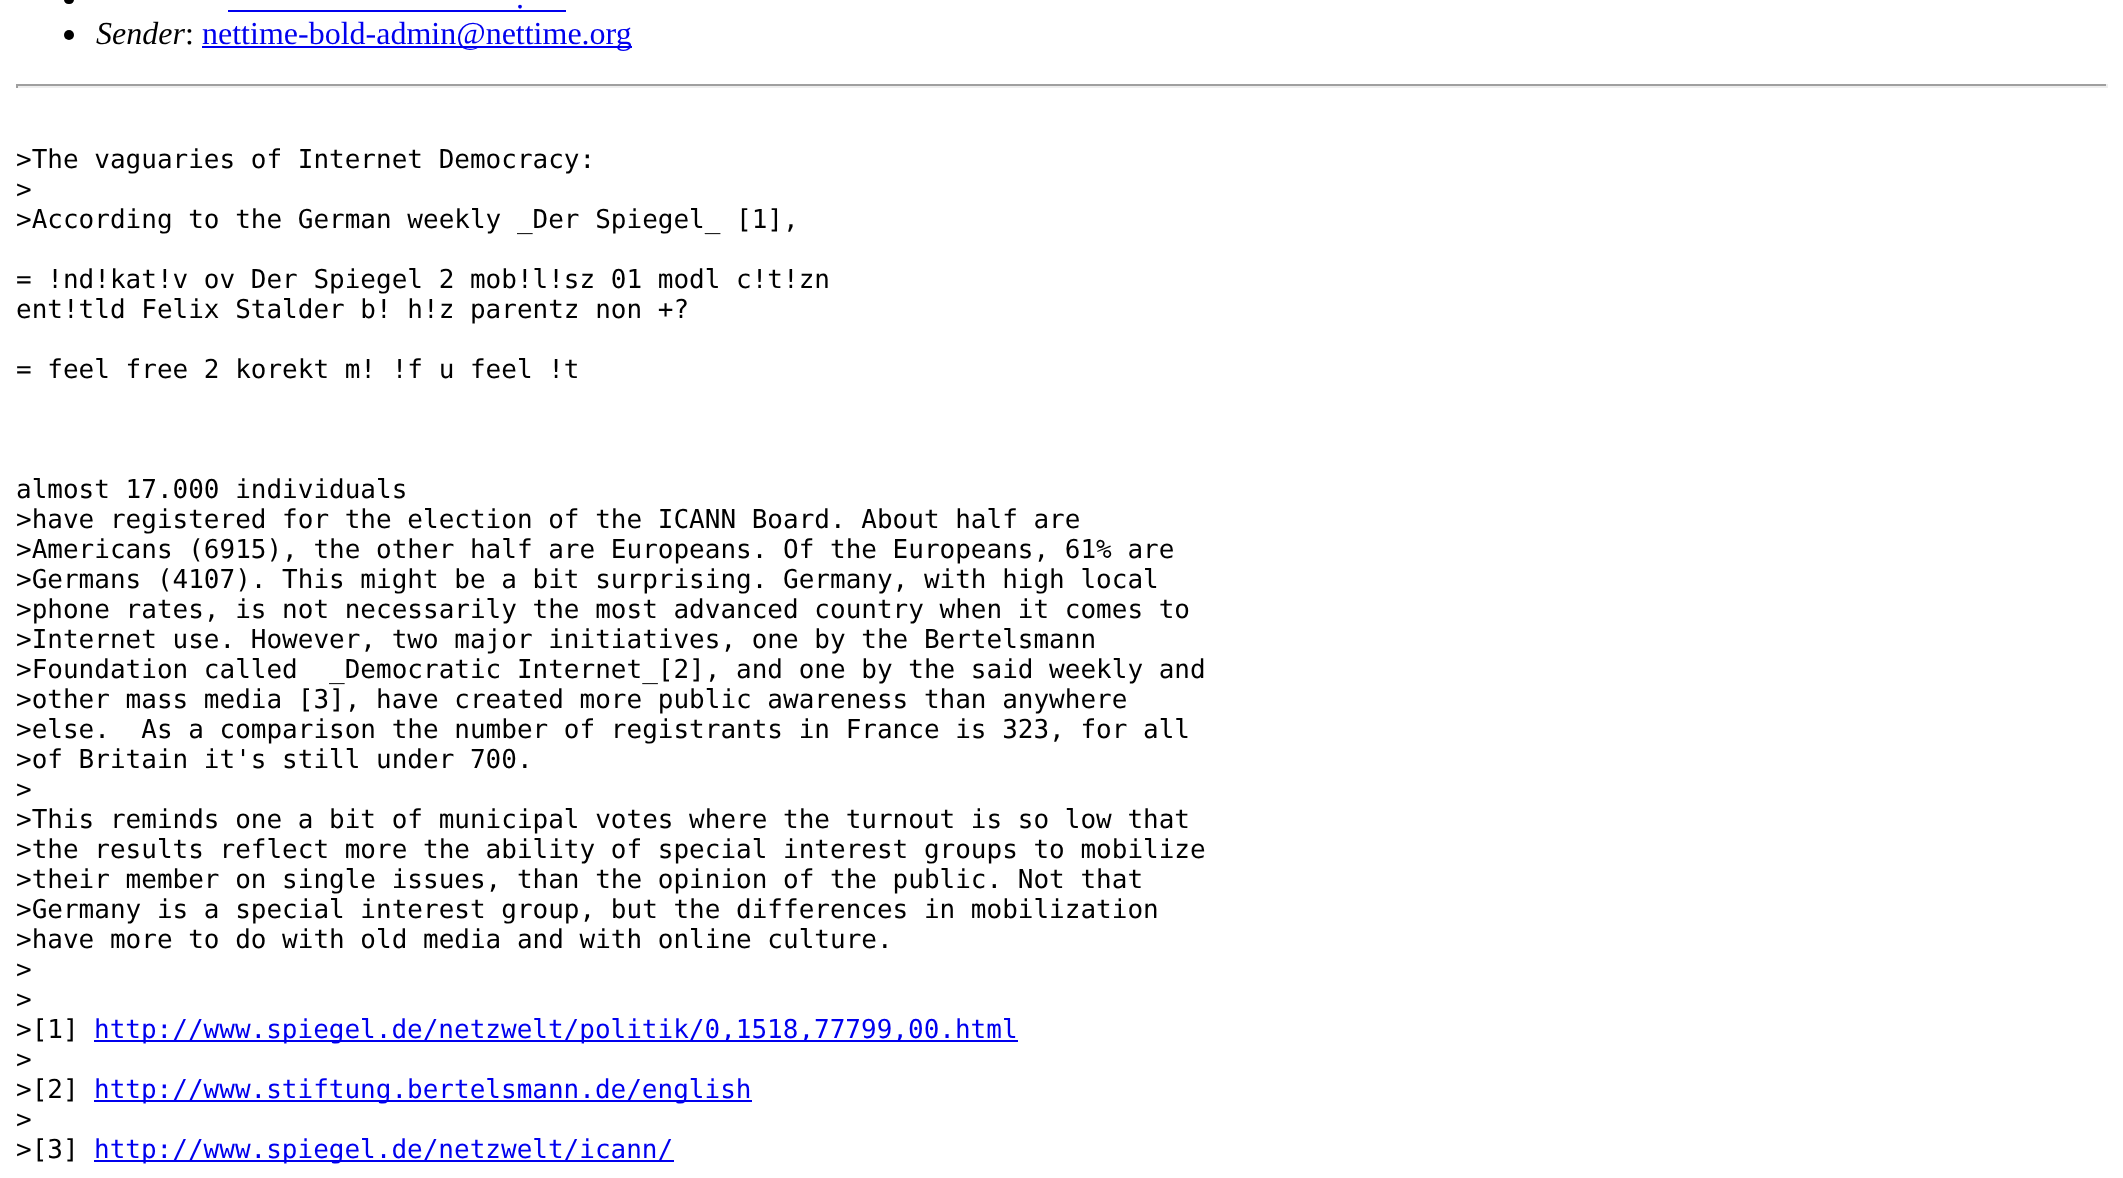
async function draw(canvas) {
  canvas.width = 2123;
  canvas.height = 1178;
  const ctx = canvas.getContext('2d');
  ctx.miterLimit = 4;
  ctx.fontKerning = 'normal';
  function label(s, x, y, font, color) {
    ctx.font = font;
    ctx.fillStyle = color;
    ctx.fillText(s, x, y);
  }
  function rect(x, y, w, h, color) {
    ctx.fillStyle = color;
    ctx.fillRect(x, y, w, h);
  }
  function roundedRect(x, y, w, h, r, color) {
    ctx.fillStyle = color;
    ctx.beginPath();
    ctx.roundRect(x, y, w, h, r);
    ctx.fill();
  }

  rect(0, 0, 2123, 1178, '#fff');
  roundedRect(64, -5, 10, 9, 5, '#000');
  label('.', 516, 8, '32px Liberation Serif', '#00e');
  rect(228, 10, 338, 2, '#00e');
  ctx.fillStyle = '#000';
  ctx.beginPath();
  ctx.arc(69, 35, 5, 0, 2 * Math.PI);
  ctx.fill();
  label('Sender', 96, 44, 'italic 32px Liberation Serif', '#000');
  label(':', 185, 44, '32px Liberation Serif', '#000');
  rect(202, 46, 430, 2, '#00e');
  label('nettime-bold-admin@nettime.org', 202, 44, '32px Liberation Serif', '#00e');
  rect(16, 84, 2092, 2, '#9f9f9f');
  rect(2106, 84, 2, 4, '#eee');
  rect(16, 86, 2092, 2, '#eee');
  rect(16, 84, 2, 4, '#9f9f9f');
  label('>The vaguaries of Internet Democracy:', 16, 168, '26px DejaVu Sans Mono', '#000');
  label('>', 16, 198, '26px DejaVu Sans Mono', '#000');
  label('>According to the German weekly _Der Spiegel_ [1],', 16, 228, '26px DejaVu Sans Mono', '#000');
  label('= !nd!kat!v ov Der Spiegel 2 mob!l!sz 01 modl c!t!zn', 16, 288, '26px DejaVu Sans Mono', '#000');
  label('ent!tld Felix Stalder b! h!z parentz non +?', 16, 318, '26px DejaVu Sans Mono', '#000');
  label('= feel free 2 korekt m! !f u feel !t', 16, 378, '26px DejaVu Sans Mono', '#000');
  label('almost 17.000 individuals', 16, 498, '26px DejaVu Sans Mono', '#000');
  label('>have registered for the election of the ICANN Board. About half are', 16, 528, '26px DejaVu Sans Mono', '#000');
  label('>Americans (6915), the other half are Europeans. Of the Europeans, 61% are', 16, 558, '26px DejaVu Sans Mono', '#000');
  label('>Germans (4107). This might be a bit surprising. Germany, with high local', 16, 588, '26px DejaVu Sans Mono', '#000');
  label('>phone rates, is not necessarily the most advanced country when it comes to', 16, 618, '26px DejaVu Sans Mono', '#000');
  label('>Internet use. However, two major initiatives, one by the Bertelsmann', 16, 648, '26px DejaVu Sans Mono', '#000');
  label('>Foundation called  _Democratic Internet_[2], and one by the said weekly and', 16, 678, '26px DejaVu Sans Mono', '#000');
  label('>other mass media [3], have created more public awareness than anywhere', 16, 708, '26px DejaVu Sans Mono', '#000');
  label('>else.  As a comparison the number of registrants in France is 323, for all', 16, 738, '26px DejaVu Sans Mono', '#000');
  label('>of Britain it\'s still under 700.', 16, 768, '26px DejaVu Sans Mono', '#000');
  label('>', 16, 798, '26px DejaVu Sans Mono', '#000');
  label('>This reminds one a bit of municipal votes where the turnout is so low that', 16, 828, '26px DejaVu Sans Mono', '#000');
  label('>the results reflect more the ability of special interest groups to mobilize', 16, 858, '26px DejaVu Sans Mono', '#000');
  label('>their member on single issues, than the opinion of the public. Not that', 16, 888, '26px DejaVu Sans Mono', '#000');
  label('>Germany is a special interest group, but the differences in mobilization', 16, 918, '26px DejaVu Sans Mono', '#000');
  label('>have more to do with old media and with online culture.', 16, 948, '26px DejaVu Sans Mono', '#000');
  label('>', 16, 978, '26px DejaVu Sans Mono', '#000');
  label('>', 16, 1008, '26px DejaVu Sans Mono', '#000');
  label('>[1]', 16, 1038, '26px DejaVu Sans Mono', '#000');
  rect(94, 1040, 924, 2, '#00e');
  label('http://www.spiegel.de/netzwelt/politik/0,1518,77799,00.html', 94, 1038, '26px DejaVu Sans Mono', '#00e');
  label('>', 16, 1068, '26px DejaVu Sans Mono', '#000');
  label('>[2]', 16, 1098, '26px DejaVu Sans Mono', '#000');
  rect(94, 1100, 658, 2, '#00e');
  label('http://www.stiftung.bertelsmann.de/english', 94, 1098, '26px DejaVu Sans Mono', '#00e');
  label('>', 16, 1128, '26px DejaVu Sans Mono', '#000');
  label('>[3]', 16, 1158, '26px DejaVu Sans Mono', '#000');
  rect(94, 1160, 580, 2, '#00e');
  label('http://www.spiegel.de/netzwelt/icann/', 94, 1158, '26px DejaVu Sans Mono', '#00e');
}

draw(document.querySelector('canvas'));
